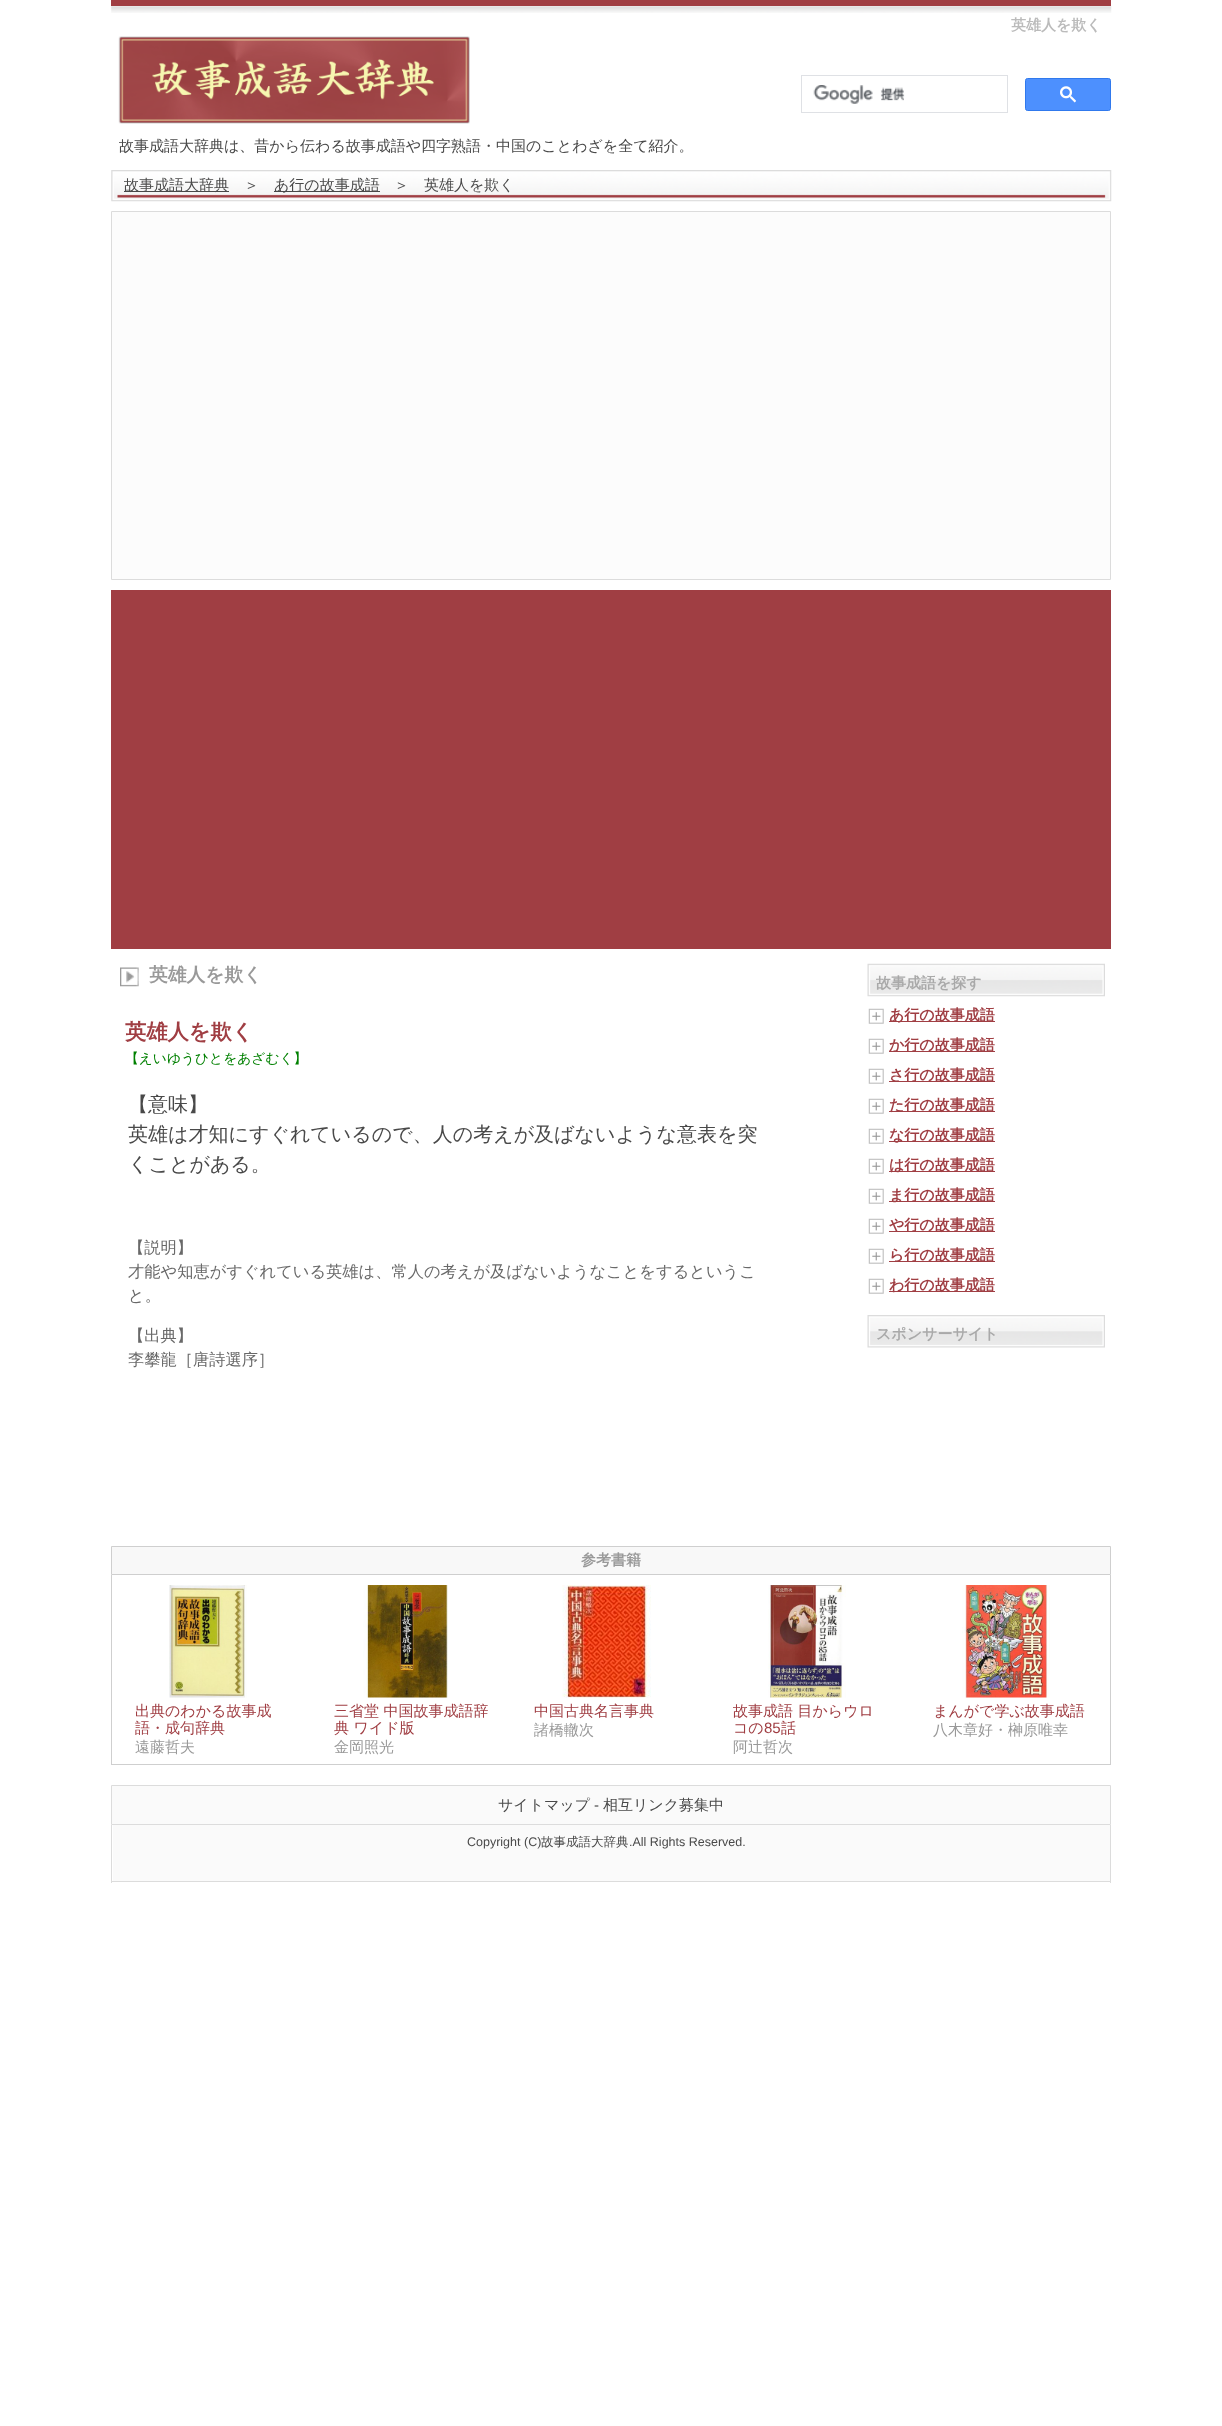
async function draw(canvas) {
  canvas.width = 1222;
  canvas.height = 2426;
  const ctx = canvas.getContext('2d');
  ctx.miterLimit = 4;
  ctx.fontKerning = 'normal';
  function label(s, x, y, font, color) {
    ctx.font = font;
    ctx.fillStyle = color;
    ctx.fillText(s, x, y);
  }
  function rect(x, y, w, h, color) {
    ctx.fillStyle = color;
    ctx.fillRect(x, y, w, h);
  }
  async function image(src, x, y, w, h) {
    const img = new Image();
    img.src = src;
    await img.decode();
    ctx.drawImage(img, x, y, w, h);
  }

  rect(0, 0, 1222, 2426, '#fff');
  await image('assets/img1.png', 111, 6, 1001, 7);
  rect(111, 0, 1000, 6, '#a03e43');
  label('英雄人を欺く', 1011, 30, 'bold 15px WenQuanYi Zen Hei', '#bbb');
  await image('assets/img2.png', 118, 36, 352, 88);
  ctx.strokeStyle = '#dfe1e5';
  ctx.strokeRect(801.5, 75.5, 206, 37);
  await image('assets/img3.png', 813, 85, 92, 19);
  ctx.fillStyle = '#4d90fe';
  ctx.beginPath();
  ctx.roundRect(1025.5, 78.5, 85, 32, 2);
  ctx.fill();
  ctx.strokeStyle = '#3079ed';
  ctx.stroke();
  await image('assets/img4.png', 1060, 86, 16, 17);
  label('故事成語大辞典は、昔から伝わる故事成語や四字熟語・中国のことわざを全て紹介。', 119, 151, '500 15px WenQuanYi Zen Hei', '#494949');
  await image('assets/img5.png', 111, 170, 1001, 32);
  rect(124, 191, 105, 1, '#494949');
  label('故事成語大辞典', 124, 190, '500 15px WenQuanYi Zen Hei', '#494949');
  label('＞', 244, 190, '500 15px WenQuanYi Zen Hei', '#494949');
  rect(274, 191, 106, 1, '#494949');
  label('あ行の故事成語', 274, 190, '500 15px WenQuanYi Zen Hei', '#494949');
  label('＞　英雄人を欺く', 394, 190, '500 15px WenQuanYi Zen Hei', '#494949');
  ctx.fillStyle = '#fcfcfc';
  ctx.beginPath();
  ctx.rect(111.5, 211.5, 999, 368);
  ctx.fill();
  ctx.strokeStyle = '#dcdcdc';
  ctx.stroke();
  rect(111, 590, 1000, 359, '#a03e43');
  await image('assets/img6.png', 120, 967, 19, 20);
  label('英雄人を欺く', 149, 981, 'bold 18.75px WenQuanYi Zen Hei', '#999');
  label('英雄人を欺く', 125, 1039, 'bold 21.25px WenQuanYi Zen Hei', '#a03e43');
  label('【えいゆうひとをあざむく】', 125, 1063, '500 13.75px WenQuanYi Zen Hei', '#008000');
  label('【意味】', 128, 1111, '500 20px WenQuanYi Zen Hei', '#494949');
  label('英雄は才知にすぐれているので、人の考えが及ばないような意表を突', 128, 1141, '500 20px WenQuanYi Zen Hei', '#494949');
  label('くことがある。', 128, 1171, '500 20px WenQuanYi Zen Hei', '#494949');
  label('【説明】', 128, 1253, '500 16.25px WenQuanYi Zen Hei', '#696969');
  label('才能や知恵がすぐれている英雄は、常人の考えが及ばないようなことをするというこ', 128, 1277, '500 16.25px WenQuanYi Zen Hei', '#696969');
  label('と。', 128, 1301, '500 16.25px WenQuanYi Zen Hei', '#696969');
  label('【出典】', 128, 1341, '500 16.25px WenQuanYi Zen Hei', '#696969');
  label('李攀龍［唐詩選序］', 128, 1365, '500 16.25px WenQuanYi Zen Hei', '#696969');
  await image('assets/img7.png', 867, 963, 238, 34);
  label('故事成語を探す', 876, 988, 'bold 15px WenQuanYi Zen Hei', '#a9a9a9');
  await image('assets/img8.png', 868, 1008, 16, 16);
  rect(889, 1021, 106, 1, '#a03e43');
  label('あ行の故事成語', 889, 1020, 'bold 15px WenQuanYi Zen Hei', '#a03e43');
  await image('assets/img8.png', 868, 1038, 16, 16);
  rect(889, 1051, 106, 1, '#a03e43');
  label('か行の故事成語', 889, 1050, 'bold 15px WenQuanYi Zen Hei', '#a03e43');
  await image('assets/img8.png', 868, 1068, 16, 16);
  rect(889, 1081, 106, 1, '#a03e43');
  label('さ行の故事成語', 889, 1080, 'bold 15px WenQuanYi Zen Hei', '#a03e43');
  await image('assets/img8.png', 868, 1098, 16, 16);
  rect(889, 1111, 106, 1, '#a03e43');
  label('た行の故事成語', 889, 1110, 'bold 15px WenQuanYi Zen Hei', '#a03e43');
  await image('assets/img8.png', 868, 1128, 16, 16);
  rect(889, 1141, 106, 1, '#a03e43');
  label('な行の故事成語', 889, 1140, 'bold 15px WenQuanYi Zen Hei', '#a03e43');
  await image('assets/img8.png', 868, 1158, 16, 16);
  rect(889, 1171, 106, 1, '#a03e43');
  label('は行の故事成語', 889, 1170, 'bold 15px WenQuanYi Zen Hei', '#a03e43');
  await image('assets/img8.png', 868, 1188, 16, 16);
  rect(889, 1201, 106, 1, '#a03e43');
  label('ま行の故事成語', 889, 1200, 'bold 15px WenQuanYi Zen Hei', '#a03e43');
  await image('assets/img8.png', 868, 1218, 16, 16);
  rect(889, 1231, 106, 1, '#a03e43');
  label('や行の故事成語', 889, 1230, 'bold 15px WenQuanYi Zen Hei', '#a03e43');
  await image('assets/img8.png', 868, 1248, 16, 16);
  rect(889, 1261, 106, 1, '#a03e43');
  label('ら行の故事成語', 889, 1260, 'bold 15px WenQuanYi Zen Hei', '#a03e43');
  await image('assets/img9.png', 868, 1278, 16, 16);
  rect(889, 1291, 106, 1, '#a03e43');
  label('わ行の故事成語', 889, 1290, 'bold 15px WenQuanYi Zen Hei', '#a03e43');
  await image('assets/img10.png', 867, 1315, 238, 33);
  label('スポンサーサイト', 876, 1339, 'bold 15px WenQuanYi Zen Hei', '#a9a9a9');
  ctx.fillStyle = '#f8f8f8';
  ctx.beginPath();
  ctx.rect(111.5, 1546.5, 999, 28);
  ctx.fill();
  ctx.strokeStyle = '#cfcfcf';
  ctx.stroke();
  label('参考書籍', 581, 1565, 'bold 15px WenQuanYi Zen Hei', '#999');
  rect(111, 1764, 799, 1, '#cfcfcf');
  rect(111, 1575, 1, 190, '#cfcfcf');
  await image('assets/img11.png', 169, 1585, 78, 113);
  label('出典のわかる故事成', 135, 1716, '500 15px WenQuanYi Zen Hei', '#a03e43');
  label('語・成句辞典', 135, 1733, '500 15px WenQuanYi Zen Hei', '#a03e43');
  label('遠藤哲夫', 135, 1752, '500 15px WenQuanYi Zen Hei', '#999');
  await image('assets/img12.png', 363, 1585, 85, 113);
  label('三省堂 中国故事成語辞', 334, 1716, '500 15px WenQuanYi Zen Hei', '#a03e43');
  label('典 ワイド版', 334, 1733, '500 15px WenQuanYi Zen Hei', '#a03e43');
  label('金岡照光', 334, 1752, '500 15px WenQuanYi Zen Hei', '#999');
  await image('assets/img13.png', 562, 1585, 89, 113);
  label('中国古典名言事典', 534, 1716, '500 15px WenQuanYi Zen Hei', '#a03e43');
  label('諸橋轍次', 534, 1735, '500 15px WenQuanYi Zen Hei', '#999');
  await image('assets/img14.png', 768, 1585, 78, 113);
  label('故事成語 目からウロ', 733, 1716, '500 15px WenQuanYi Zen Hei', '#a03e43');
  label('コの', 733, 1733, '500 15px WenQuanYi Zen Hei', '#a03e43');
  label('85', 764, 1733, '15px Liberation Sans', '#a03e43');
  label('話', 781, 1733, '500 15px WenQuanYi Zen Hei', '#a03e43');
  label('阿辻哲次', 733, 1752, '500 15px WenQuanYi Zen Hei', '#999');
  rect(1110, 1575, 1, 190, '#cfcfcf');
  rect(910, 1764, 201, 1, '#cfcfcf');
  await image('assets/img15.png', 962, 1585, 88, 113);
  label('まんがで学ぶ故事成語', 933, 1716, '500 15px WenQuanYi Zen Hei', '#a03e43');
  label('八木章好・榊原唯幸', 933, 1735, '500 15px WenQuanYi Zen Hei', '#999');
  ctx.fillStyle = '#fafafa';
  ctx.beginPath();
  ctx.rect(111.5, 1785.5, 999, 39);
  ctx.fill();
  ctx.strokeStyle = '#dcdcdc';
  ctx.stroke();
  label('サイトマップ', 498, 1810, '500 15px WenQuanYi Zen Hei', '#494949');
  label('-', 594, 1810, '15px Liberation Sans', '#494949');
  label('相互リンク募集中', 603, 1810, '500 15px WenQuanYi Zen Hei', '#494949');
  rect(113, 1825, 997, 56, '#fafafa');
  rect(1110, 1825, 1, 58, '#dcdcdc');
  rect(111, 1881, 1000, 1, '#dcdcdc');
  rect(111, 1825, 1, 58, '#dcdcdc');
  label('Copyright (C)', 467, 1846, '12.5px Liberation Sans', '#494949');
  label('故事成語大辞典', 541, 1846, '500 12.5px WenQuanYi Zen Hei', '#494949');
  label('.All Rights Reserved.', 629, 1846, '12.5px Liberation Sans', '#494949');
}

draw(document.querySelector('canvas'));
